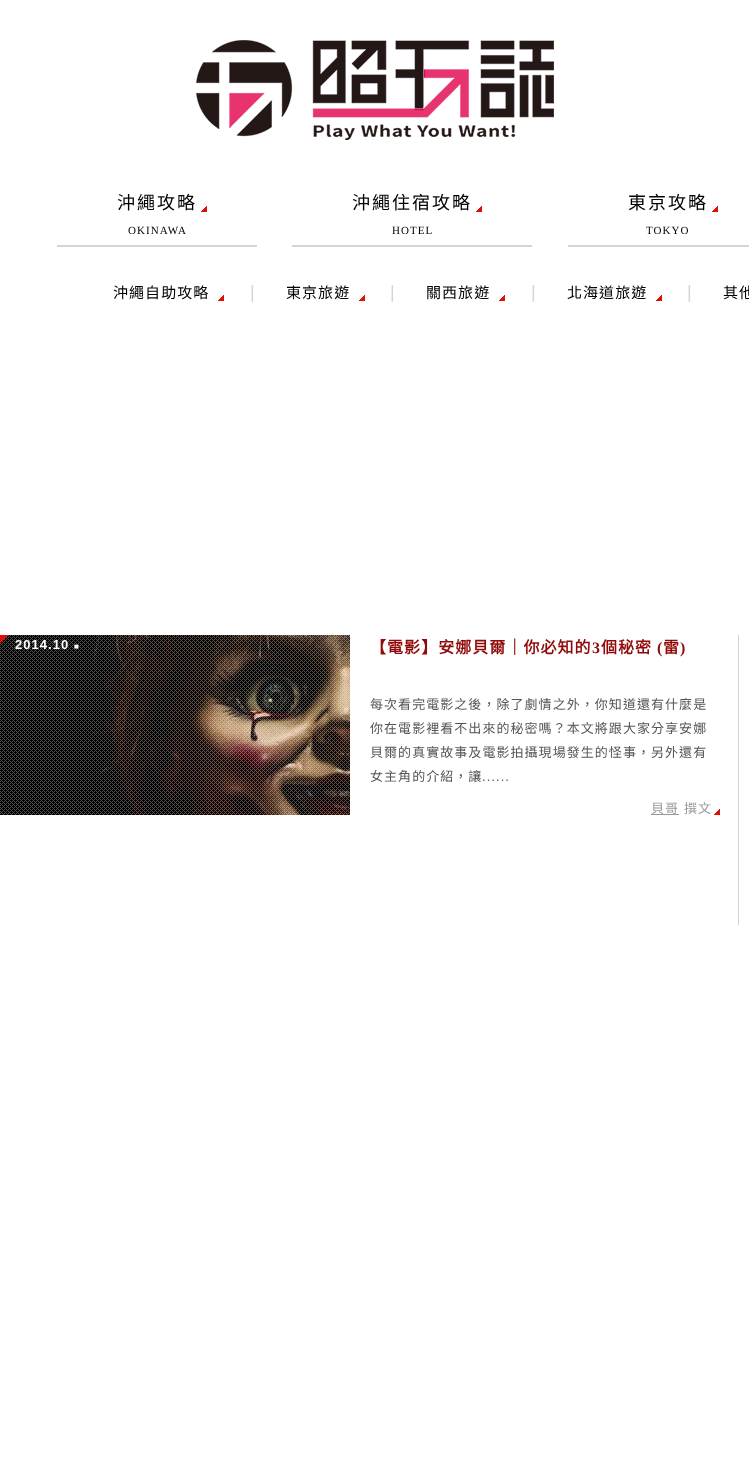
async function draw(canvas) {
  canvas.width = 749;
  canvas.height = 1472;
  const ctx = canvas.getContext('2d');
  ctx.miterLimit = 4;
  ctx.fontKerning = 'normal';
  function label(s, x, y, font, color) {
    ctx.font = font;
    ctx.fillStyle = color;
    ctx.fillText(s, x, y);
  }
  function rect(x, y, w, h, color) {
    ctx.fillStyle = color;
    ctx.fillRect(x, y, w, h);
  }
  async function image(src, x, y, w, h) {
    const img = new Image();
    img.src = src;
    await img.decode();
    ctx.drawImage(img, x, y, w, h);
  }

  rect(0, 0, 749, 1472, '#fff');
  await image('assets/img1.png', 196, 40, 358, 100);
  rect(57, 245, 200, 2, '#d5d5d5');
  await image('assets/img2.png', 201, 206, 6, 6);
  ctx.letterSpacing = '2px';
  label('沖繩攻略', 117, 209, '18px Noto Sans CJK TC', '#000');
  ctx.letterSpacing = '1.05px';
  label('OKINAWA', 128, 234, '11px Liberation Serif', '#000');
  rect(292, 245, 240, 2, '#d5d5d5');
  await image('assets/img2.png', 476, 206, 6, 6);
  ctx.letterSpacing = '2px';
  label('沖繩住宿攻略', 352, 209, '18px Noto Sans CJK TC', '#000');
  ctx.letterSpacing = '1.05px';
  label('HOTEL', 392, 234, '11px Liberation Serif', '#000');
  rect(568, 245, 181, 2, '#d5d5d5');
  await image('assets/img2.png', 712, 206, 6, 6);
  ctx.letterSpacing = '2px';
  label('東京攻略', 628, 209, '18px Noto Sans CJK TC', '#000');
  ctx.letterSpacing = '1.05px';
  label('TOKYO', 646, 234, '11px Liberation Serif', '#000');
  label('沖繩自助攻略', 113, 298, '15px Noto Sans CJK TC', '#000');
  await image('assets/img2.png', 218, 295, 6, 6);
  label('|', 250, 298, '18px Liberation Sans', '#d5d5d5');
  label('東京旅遊', 286, 298, '15px Noto Sans CJK TC', '#000');
  await image('assets/img2.png', 359, 295, 6, 6);
  label('|', 390, 298, '18px Liberation Sans', '#d5d5d5');
  label('關西旅遊', 426, 298, '15px Noto Sans CJK TC', '#000');
  await image('assets/img2.png', 499, 295, 6, 6);
  label('|', 531, 298, '18px Liberation Sans', '#d5d5d5');
  label('北海道旅遊', 567, 298, '15px Noto Sans CJK TC', '#000');
  await image('assets/img2.png', 656, 295, 6, 6);
  label('|', 687, 298, '18px Liberation Sans', '#d5d5d5');
  label('其他', 723, 298, '15px Noto Sans CJK TC', '#000');
  rect(738, 635, 1, 290, '#d5d5d5');
  await image('assets/img3.png', 0, 635, 350, 180);
  await image('assets/img4.png', 0, 635, 350, 180);
  await image('assets/img5.png', 0, 635, 8, 8);
  label('2014.10', 15, 649, 'bold 13px Liberation Sans', '#fff');
  label('■', 74, 649, 'bold 8px Liberation Sans', '#fff');
  label('【電影】安娜貝爾｜你必知的', 370, 653, 'bold 16px Noto Sans CJK TC', '#900a0a');
  label('3', 592, 653, 'bold 16px Liberation Serif', '#900a0a');
  label('個秘密', 601, 653, 'bold 16px Noto Sans CJK TC', '#900a0a');
  label('(', 657, 653, 'bold 16px Liberation Serif', '#900a0a');
  label('雷', 663, 653, 'bold 16px Noto Sans CJK TC', '#900a0a');
  label(')', 680, 653, 'bold 16px Liberation Serif', '#900a0a');
  label('每次看完電影之後，除了劇情之外，你知道還有什麼是', 370, 709, '13px Noto Sans CJK TC', '#555');
  label('你在電影裡看不出來的秘密嗎？本文將跟大家分享安娜', 370, 733, '13px Noto Sans CJK TC', '#555');
  label('貝爾的真實故事及電影拍攝現場發生的怪事，另外還有', 370, 757, '13px Noto Sans CJK TC', '#555');
  label('女主角的介紹，讓', 370, 781, '13px Noto Sans CJK TC', '#555');
  label('......', 482, 781, '13px Liberation Sans', '#555');
  await image('assets/img2.png', 714, 809, 6, 6);
  rect(651, 814, 28, 1, '#989898');
  label('貝哥', 651, 813, '13px Noto Sans CJK TC', '#989898');
  label('撰文', 684, 813, '13px Noto Sans CJK TC', '#989898');
}

draw(document.querySelector('canvas'));
